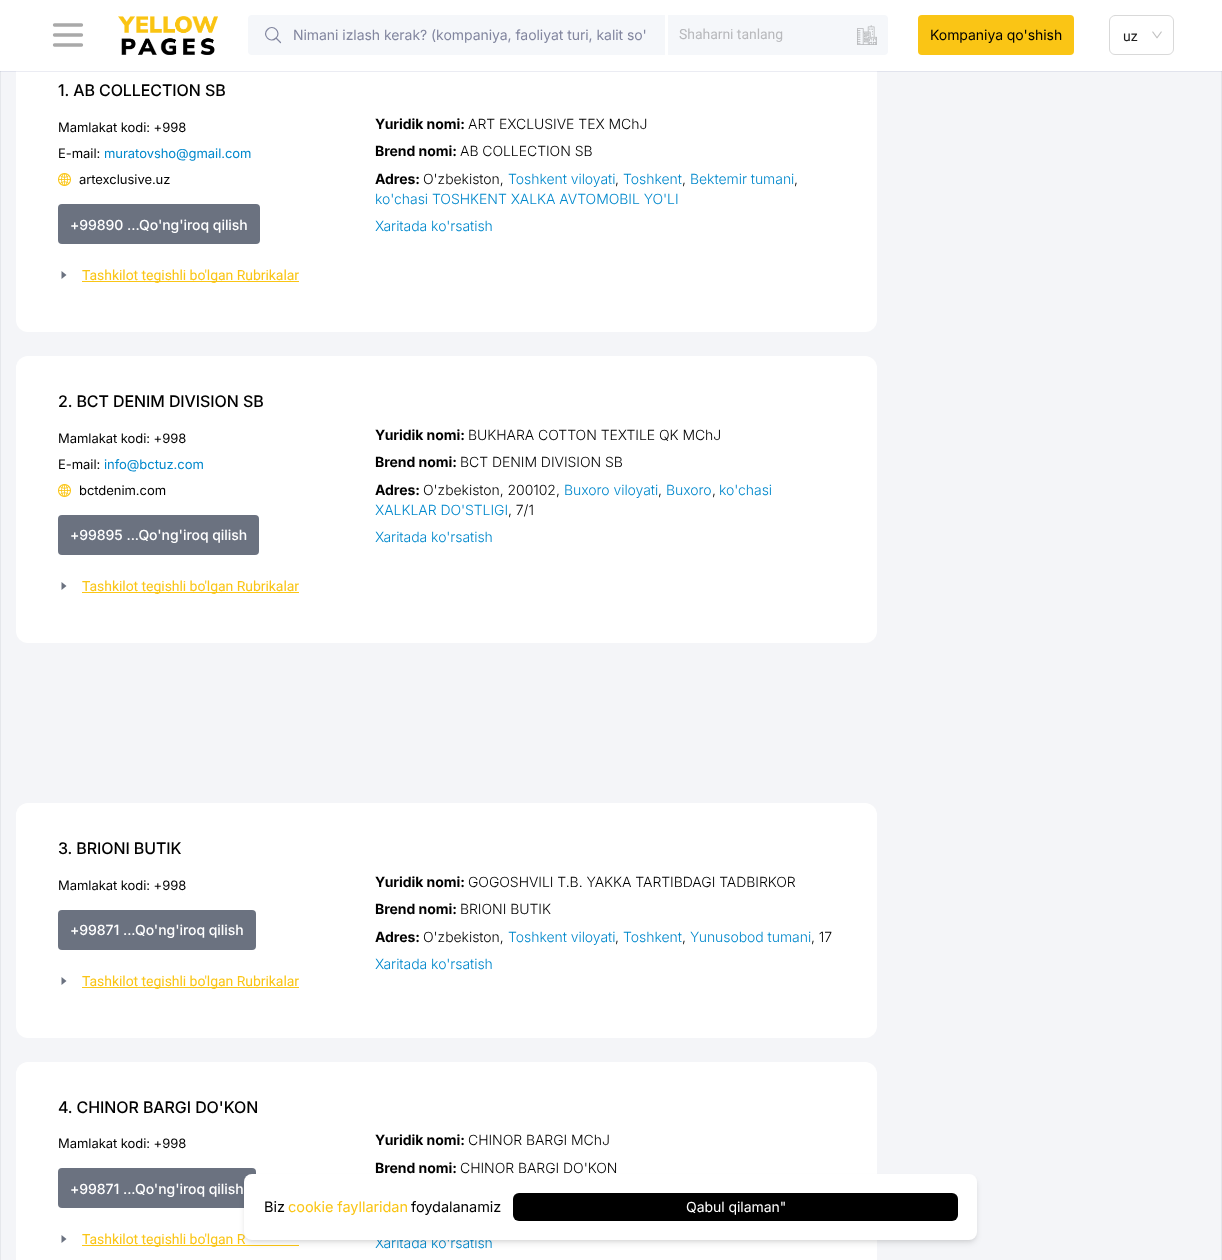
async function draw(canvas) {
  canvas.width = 1222;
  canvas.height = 1260;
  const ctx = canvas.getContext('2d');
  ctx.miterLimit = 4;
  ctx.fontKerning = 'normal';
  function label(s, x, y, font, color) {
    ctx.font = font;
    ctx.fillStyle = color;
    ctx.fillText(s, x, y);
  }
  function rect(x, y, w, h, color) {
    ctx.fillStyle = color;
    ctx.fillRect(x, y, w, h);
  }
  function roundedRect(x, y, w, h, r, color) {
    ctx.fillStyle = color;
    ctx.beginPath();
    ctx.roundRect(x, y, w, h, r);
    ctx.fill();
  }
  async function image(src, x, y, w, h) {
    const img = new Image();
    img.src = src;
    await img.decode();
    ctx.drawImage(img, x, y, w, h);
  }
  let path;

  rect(0, 0, 1222, 1260, '#f4f5f8');
  rect(0, 71, 1222, 1, '#e1e3ed');
  roundedRect(16, 45, 861, 287, 12, '#fff');
  rect(0, 0, 1222, 71, '#fff');
  path = new Path2D('M54.5 45H81.5M54.5 35H81.5M54.5 25H81.5');
  ctx.strokeStyle = '#a9a9a9';
  ctx.lineWidth = 3.3;
  ctx.lineCap = 'round';
  ctx.stroke(path);
  await image('assets/img1.png', 118, 16, 100, 39);
  ctx.fillStyle = '#f5f7fa';
  ctx.beginPath();
  ctx.roundRect(248, 15, 417, 40, [4, 0, 0, 4]);
  ctx.fill();
  path = new Path2D('M280.5 42.5L276 38M276 38C282 32.5 273 23.5 267.5 29.5C261.5 35 270.5 44 276 38');
  ctx.strokeStyle = '#82869f';
  ctx.lineWidth = 1.2;
  ctx.lineJoin = 'round';
  ctx.stroke(path);
  ctx.letterSpacing = '-0.05px';
  label('Nimani izlash kerak? (kompaniya, faoliyat turi, kalit so\'', 293, 40, '14px Inter', '#82869f');
  ctx.fillStyle = '#f5f7fa';
  ctx.beginPath();
  ctx.roundRect(668, 15, 220, 40, [0, 4, 4, 0]);
  ctx.fill();
  label('Shaharni tanlang', 679, 39, '14px Roboto', '#b8b9bc');
  await image('assets/img2.png', 857, 25, 20, 20);
  roundedRect(918, 15, 156, 40, 4, '#fac515');
  label('Kompaniya qo\'shish', 930, 40, '14px Inter', '#000');
  ctx.beginPath();
  ctx.roundRect(1109.5, 15.5, 64, 39, 5.5);
  ctx.strokeStyle = '#d9d9d9';
  ctx.lineWidth = 1;
  ctx.lineJoin = 'miter';
  ctx.stroke();
  label('uz', 1123, 41, '14px Roboto', '#1f1f1f');
  await image('assets/img3.png', 1152, 31, 10, 8);
  rect(1221, 72, 1, 1188, '#e5e7eb');
  rect(1221, 71, 1, 1, '#d3d6e1');
  rect(0, 72, 1, 1188, '#e5e7eb');
  rect(0, 71, 1, 1, '#d3d6e1');
  rect(16, 71, 861, 1, '#ebecf3');
  label('1. AB COLLECTION SB', 58, 96, '500 16px Inter', '#000');
  label('Mamlakat kodi: +998', 58, 132, '13px Inter', '#000');
  label('E-mail:', 58, 158, '13px Inter', '#000');
  label('muratovsho@gmail.com', 104, 158, '13px Inter', '#08c');
  await image('assets/img4.png', 58, 173, 13, 13);
  label('artexclusive.uz', 79, 184, '13px Inter', '#000');
  roundedRect(58, 204, 202, 40, 4, '#6b7280');
  label('+99890 ...Qo\'ng\'iroq qilish', 70, 230, '500 14px "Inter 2"', '#fff');
  ctx.fillStyle = '#6b7280';
  path = new Path2D('M66.5 275L61.5 271V279Z');
  ctx.fill(path);
  rect(82, 281, 217, 1, '#fac515');
  label('Tashkilot tegishli bo\'lgan Rubrikalar', 82, 280, '14px Roboto', '#fac515');
  label('Yuridik nomi:', 375, 129, 'bold 14px Inter', '#000');
  label('ART EXCLUSIVE TEX MChJ', 468, 129, '300 14px Inter', '#000');
  label('Brend nomi:', 375, 156, 'bold 14px Inter', '#000');
  label('AB COLLECTION SB', 460, 156, '300 14px Inter', '#000');
  label('Adres:', 375, 184, 'bold 14px Inter', '#000');
  label('O\'zbekiston,', 423, 184, '300 14px Inter', '#000');
  label('Toshkent viloyati', 508, 184, '300 14px Inter', '#08c');
  label(',', 615, 184, '300 14px Inter', '#000');
  label('Toshkent', 623, 184, '300 14px Inter', '#08c');
  label(',', 682, 184, '300 14px Inter', '#000');
  label('Bektemir tumani', 690, 184, '300 14px Inter', '#08c');
  label(',', 794, 184, '300 14px Inter', '#000');
  label('ko\'chasi TOSHKENT XALKA AVTOMOBIL YO\'LI', 375, 204, '300 14px Inter', '#08c');
  label('Xaritada ko\'rsatish', 375, 231, '300 14px Inter', '#08c');
  roundedRect(16, 356, 861, 287, 12, '#fff');
  label('2. BCT DENIM DIVISION SB', 58, 407, '500 16px Inter', '#000');
  label('Mamlakat kodi: +998', 58, 443, '13px Inter', '#000');
  label('E-mail:', 58, 469, '13px Inter', '#000');
  label('info@bctuz.com', 104, 469, '13px Inter', '#08c');
  await image('assets/img4.png', 58, 484, 13, 13);
  label('bctdenim.com', 79, 495, '13px Inter', '#000');
  roundedRect(58, 515, 201, 40, 4, '#6b7280');
  label('+99895 ...Qo\'ng\'iroq qilish', 70, 540, '500 14px "Inter 2"', '#fff');
  ctx.fillStyle = '#6b7280';
  path = new Path2D('M66.5 586L61.5 582V590Z');
  ctx.fill(path);
  rect(82, 592, 217, 1, '#fac515');
  label('Tashkilot tegishli bo\'lgan Rubrikalar', 82, 591, '14px Roboto', '#fac515');
  label('Yuridik nomi:', 375, 440, 'bold 14px Inter', '#000');
  label('BUKHARA COTTON TEXTILE QK MChJ', 468, 440, '300 14px Inter', '#000');
  label('Brend nomi:', 375, 467, 'bold 14px Inter', '#000');
  label('BCT DENIM DIVISION SB', 460, 467, '300 14px Inter', '#000');
  label('Adres:', 375, 495, 'bold 14px Inter', '#000');
  label('O\'zbekiston, 200102,', 423, 495, '300 14px Inter', '#000');
  label('Buxoro viloyati', 564, 495, '300 14px Inter', '#08c');
  label(',', 658, 495, '300 14px Inter', '#000');
  label('Buxoro', 666, 495, '300 14px Inter', '#08c');
  label(',', 712, 495, '300 14px Inter', '#000');
  label('ko\'chasi', 719, 495, '300 14px Inter', '#08c');
  label('XALKLAR DO\'STLIGI', 375, 515, '300 14px Inter', '#08c');
  label(', 7/1', 508, 515, '300 14px Inter', '#000');
  label('Xaritada ko\'rsatish', 375, 542, '300 14px Inter', '#08c');
  roundedRect(16, 803, 861, 235, 12, '#fff');
  label('3. BRIONI BUTIK', 58, 854, '500 16px Inter', '#000');
  label('Mamlakat kodi: +998', 58, 890, '13px Inter', '#000');
  roundedRect(58, 910, 198, 40, 4, '#6b7280');
  label('+99871 ...Qo\'ng\'iroq qilish', 70, 935, '500 14px "Inter 2"', '#fff');
  ctx.fillStyle = '#6b7280';
  path = new Path2D('M66.5 981L61.5 977V985Z');
  ctx.fill(path);
  rect(82, 987, 217, 1, '#fac515');
  label('Tashkilot tegishli bo\'lgan Rubrikalar', 82, 986, '14px Roboto', '#fac515');
  label('Yuridik nomi:', 375, 887, 'bold 14px Inter', '#000');
  label('GOGOSHVILI T.B. YAKKA TARTIBDAGI TADBIRKOR', 468, 887, '300 14px Inter', '#000');
  label('Brend nomi:', 375, 914, 'bold 14px Inter', '#000');
  label('BRIONI BUTIK', 460, 914, '300 14px Inter', '#000');
  label('Adres:', 375, 942, 'bold 14px Inter', '#000');
  label('O\'zbekiston,', 423, 942, '300 14px Inter', '#000');
  label('Toshkent viloyati', 508, 942, '300 14px Inter', '#08c');
  label(',', 615, 942, '300 14px Inter', '#000');
  label('Toshkent', 623, 942, '300 14px Inter', '#08c');
  label(',', 682, 942, '300 14px Inter', '#000');
  label('Yunusobod tumani', 690, 942, '300 14px Inter', '#08c');
  label(', 17', 811, 942, '300 14px Inter', '#000');
  label('Xaritada ko\'rsatish', 375, 969, '300 14px Inter', '#08c');
  roundedRect(16, 1062, 861, 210, 12, '#fff');
  label('4. CHINOR BARGI DO\'KON', 58, 1113, '500 16px Inter', '#000');
  label('Mamlakat kodi: +998', 58, 1148, '13px Inter', '#000');
  roundedRect(58, 1168, 198, 40, 4, '#6b7280');
  label('+99871 ...Qo\'ng\'iroq qilish', 70, 1194, '500 14px "Inter 2"', '#fff');
  ctx.fillStyle = '#6b7280';
  path = new Path2D('M66.5 1239L61.5 1235V1243Z');
  ctx.fill(path);
  rect(82, 1245, 217, 1, '#fac515');
  label('Tashkilot tegishli bo\'lgan R', 82, 1244, '14px Roboto', '#fac515');
  label('Yuridik nomi:', 375, 1145, 'bold 14px Inter', '#000');
  label('CHINOR BARGI MChJ', 468, 1145, '300 14px Inter', '#000');
  label('Brend nomi:', 375, 1173, 'bold 14px Inter', '#000');
  label('CHINOR BARGI DO\'KON', 460, 1173, '300 14px Inter', '#000');
  label('Xaritada ko\'rsatish', 375, 1248, '300 14px Inter', '#08c');
  ctx.fillStyle = '#0000001a';
  ctx.filter = 'blur(2px)';
  ctx.beginPath();
  ctx.roundRect(246, 1178, 729, 62, 6);
  ctx.fill();
  ctx.filter = 'none';
  ctx.filter = 'blur(3px)';
  ctx.beginPath();
  ctx.roundRect(245, 1179, 731, 64, 7);
  ctx.fill();
  ctx.filter = 'none';
  roundedRect(244, 1174, 733, 66, 8, '#fff');
  label('Biz', 264, 1212, '14.5px Inter', '#000');
  label('cookie fayllaridan', 288, 1212, '14.5px Inter', '#fac515');
  label('foydalanamiz', 411, 1212, '14.5px Inter', '#000');
  roundedRect(513, 1193, 445, 28, 6, '#000');
  label('Qabul qilaman"', 686, 1212, '14px Inter', '#fff');
}

draw(document.querySelector('canvas'));
